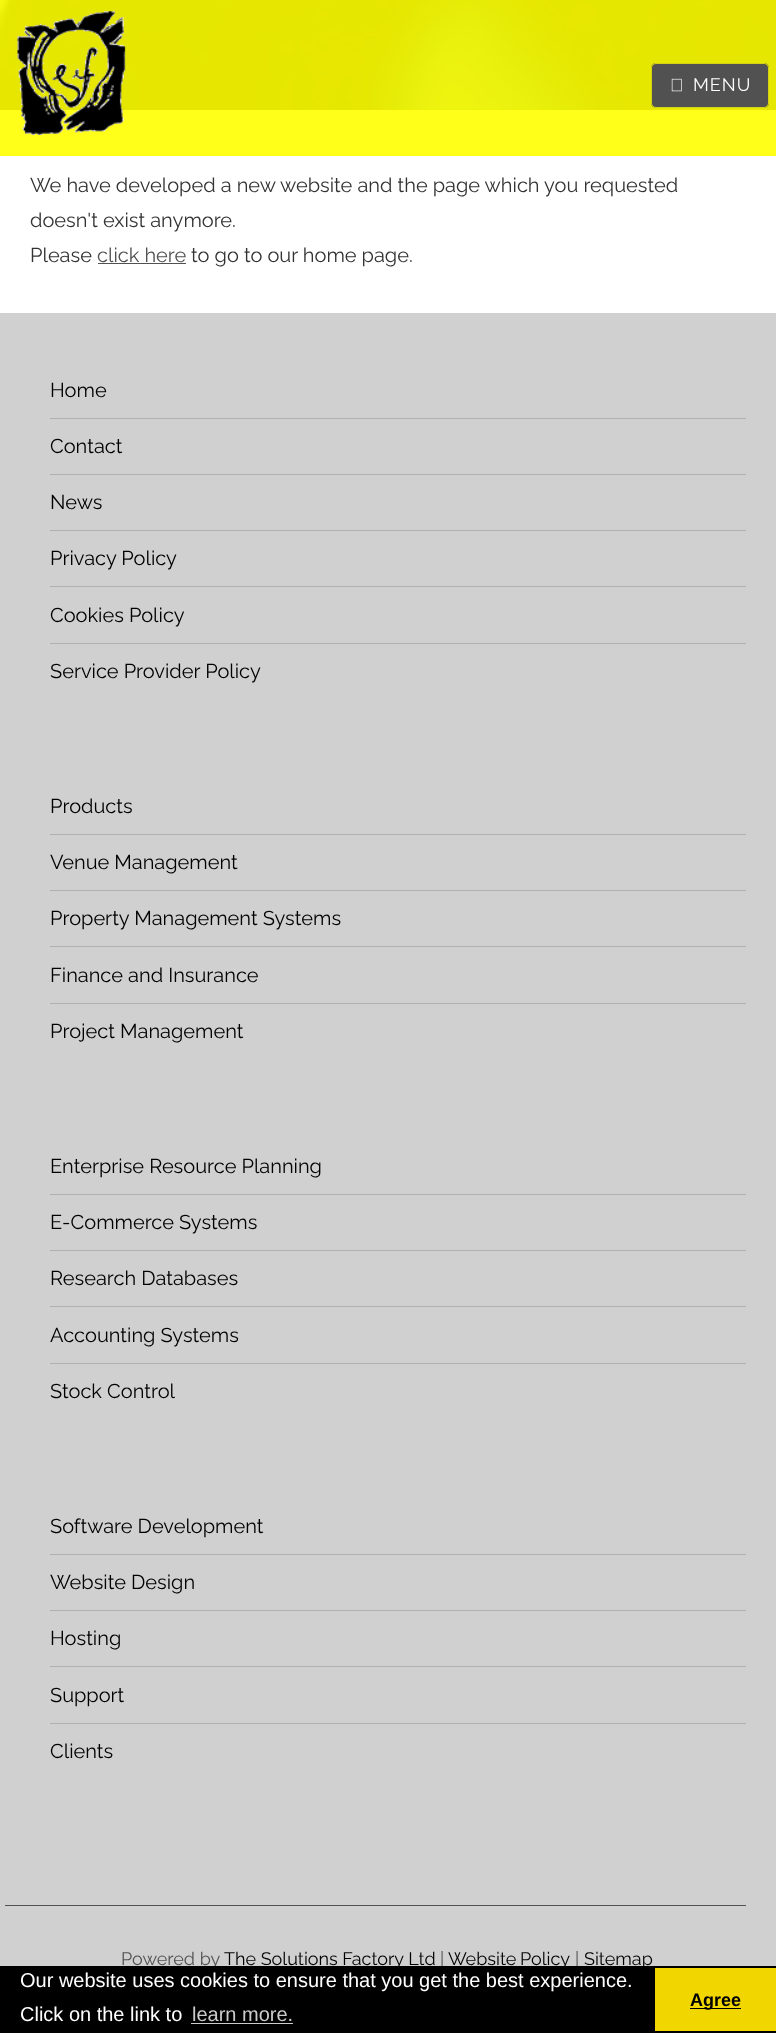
async function draw(canvas) {
  canvas.width = 776;
  canvas.height = 2033;
  const ctx = canvas.getContext('2d');
  ctx.miterLimit = 4;
  ctx.fontKerning = 'normal';
  function label(s, x, y, font, color) {
    ctx.font = font;
    ctx.fillStyle = color;
    ctx.fillText(s, x, y);
  }
  function rect(x, y, w, h, color) {
    ctx.fillStyle = color;
    ctx.fillRect(x, y, w, h);
  }
  function roundedRect(x, y, w, h, r, color) {
    ctx.fillStyle = color;
    ctx.beginPath();
    ctx.roundRect(x, y, w, h, r);
    ctx.fill();
  }
  async function image(src, x, y, w, h) {
    const img = new Image();
    img.src = src;
    await img.decode();
    ctx.drawImage(img, x, y, w, h);
  }

  rect(0, 0, 776, 2033, '#fff');
  await image('assets/img1.png', 0, 0, 776, 110);
  rect(0, 0, 776, 156, '#ffff00e6');
  await image('assets/img2.png', 17, 11, 109, 124);
  roundedRect(651, 63, 118, 45, 5, '#515151');
  ctx.beginPath();
  ctx.roundRect(651.5, 63.5, 117, 44, 4.5);
  ctx.strokeStyle = '#ffff00bf';
  ctx.stroke();
  await image('assets/img3.png', 671, 78, 11, 14);
  ctx.letterSpacing = '1px';
  label('MENU', 693, 91, '100 18px Raleway', '#fff');
  ctx.letterSpacing = '0px';
  label('We have developed a new website and the page which you requested', 30, 192, '100 20px Raleway', '#333');
  label('doesn\'t exist anymore.', 30, 227, '100 20px Raleway', '#333');
  label('Please', 30, 262, '100 20px Raleway', '#333');
  label('click here', 97, 262, '100 20px Raleway', '#515151');
  rect(98, 263, 88, 1, '#515151');
  label('to go to our home page.', 191, 262, '100 20px Raleway', '#333');
  rect(0, 313, 776, 1653, '#d0d0d0');
  label('Home', 50, 397, '100 20px Raleway', '#000');
  rect(50, 418, 696, 1, '#b0b0b0');
  label('Contact', 50, 453, '100 20px Raleway', '#000');
  rect(50, 474, 696, 1, '#b0b0b0');
  label('News', 50, 509, '100 20px Raleway', '#000');
  rect(50, 530, 696, 1, '#b0b0b0');
  label('Privacy Policy', 50, 565, '100 20px Raleway', '#000');
  rect(50, 586, 696, 1, '#b0b0b0');
  label('Cookies Policy', 50, 622, '100 20px Raleway', '#000');
  rect(50, 643, 696, 1, '#b0b0b0');
  label('Service Provider Policy', 50, 678, '100 20px Raleway', '#000');
  label('Products', 50, 813, '100 20px Raleway', '#000');
  rect(50, 834, 696, 1, '#b0b0b0');
  label('Venue Management', 50, 869, '100 20px Raleway', '#000');
  rect(50, 890, 696, 1, '#b0b0b0');
  label('Property Management Systems', 50, 925, '100 20px Raleway', '#000');
  rect(50, 946, 696, 1, '#b0b0b0');
  label('Finance and Insurance', 50, 982, '100 20px Raleway', '#000');
  rect(50, 1003, 696, 1, '#b0b0b0');
  label('Project Management', 50, 1038, '100 20px Raleway', '#000');
  label('Enterprise Resource Planning', 50, 1173, '100 20px Raleway', '#000');
  rect(50, 1194, 696, 1, '#b0b0b0');
  label('E-Commerce Systems', 50, 1229, '100 20px Raleway', '#000');
  rect(50, 1250, 696, 1, '#b0b0b0');
  label('Research Databases', 50, 1285, '100 20px Raleway', '#000');
  rect(50, 1306, 696, 1, '#b0b0b0');
  label('Accounting Systems', 50, 1342, '100 20px Raleway', '#000');
  rect(50, 1363, 696, 1, '#b0b0b0');
  label('Stock Control', 50, 1398, '100 20px Raleway', '#000');
  label('Software Development', 50, 1533, '100 20px Raleway', '#000');
  rect(50, 1554, 696, 1, '#b0b0b0');
  label('Website Design', 50, 1589, '100 20px Raleway', '#000');
  rect(50, 1610, 696, 1, '#b0b0b0');
  label('Hosting', 50, 1645, '100 20px Raleway', '#000');
  rect(50, 1666, 696, 1, '#b0b0b0');
  label('Support', 50, 1702, '100 20px Raleway', '#000');
  rect(50, 1723, 696, 1, '#b0b0b0');
  label('Clients', 50, 1758, '100 20px Raleway', '#000');
  rect(5, 1905, 741, 1, '#515151');
  label('Powered by', 121, 1965, '100 18px Raleway', '#515151');
  label('The Solutions Factory Ltd', 224, 1965, '100 18px Raleway', '#000');
  label('|', 440, 1965, '100 18px Raleway', '#515151');
  ctx.wordSpacing = '-1px';
  label('Website Policy', 448, 1965, '100 18px Raleway', '#000');
  ctx.wordSpacing = '0px';
  label('|', 575, 1965, '100 18px Raleway', '#515151');
  label('Sitemap', 584, 1965, '100 18px Raleway', '#000');
  rect(0, 1966, 776, 67, '#000');
  label('Our website uses cookies to ensure that you get the best experience.', 20, 1987, '20px Liberation Sans', '#fff');
  label('Click on the link to', 20, 2021, '20px Liberation Sans', '#fff');
  label('learn more.', 192, 2021, '20px Liberation Sans', '#ccc');
  rect(191, 2023, 102, 1, '#ccc');
  rect(655, 1968, 121, 63, '#f1d600');
  rect(690, 2008, 51, 1, '#000');
  label('Agree', 690, 2006, 'bold 18px Liberation Sans', '#000');
}

draw(document.querySelector('canvas'));
